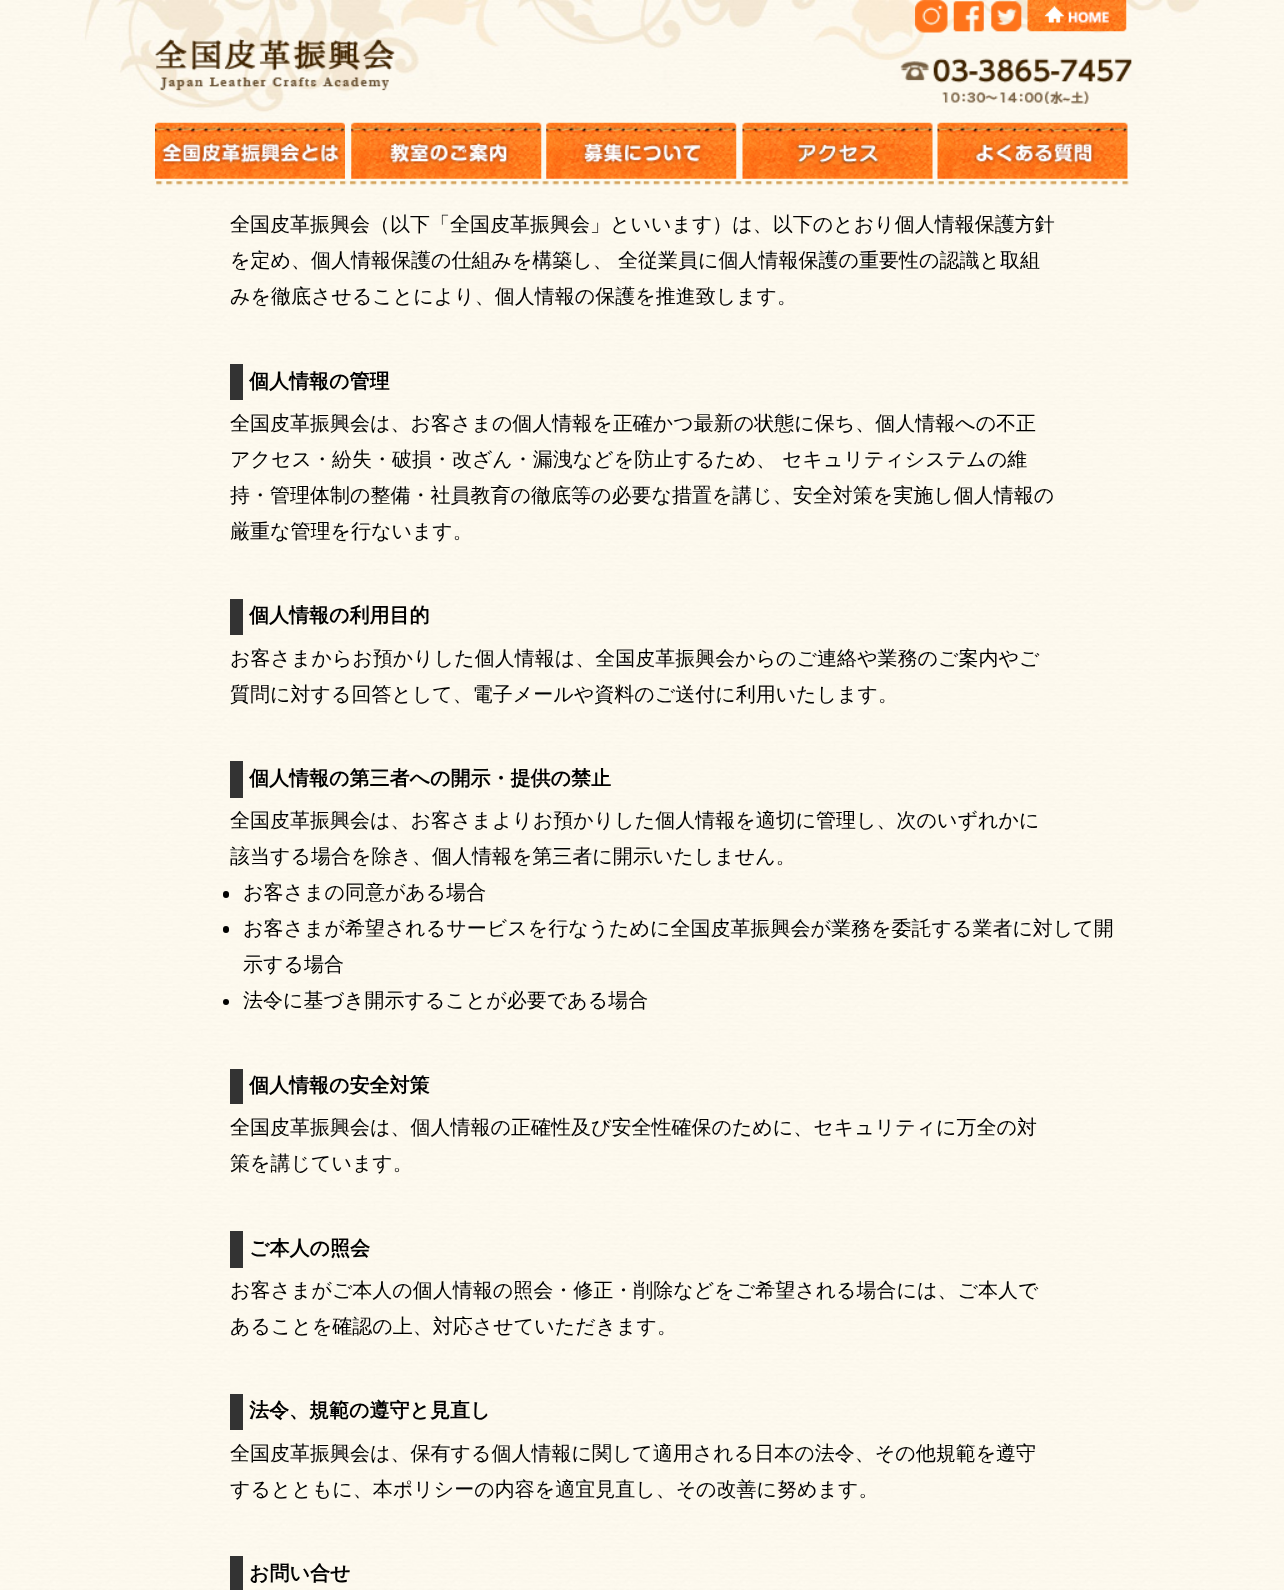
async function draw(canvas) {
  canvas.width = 1284;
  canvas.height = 1590;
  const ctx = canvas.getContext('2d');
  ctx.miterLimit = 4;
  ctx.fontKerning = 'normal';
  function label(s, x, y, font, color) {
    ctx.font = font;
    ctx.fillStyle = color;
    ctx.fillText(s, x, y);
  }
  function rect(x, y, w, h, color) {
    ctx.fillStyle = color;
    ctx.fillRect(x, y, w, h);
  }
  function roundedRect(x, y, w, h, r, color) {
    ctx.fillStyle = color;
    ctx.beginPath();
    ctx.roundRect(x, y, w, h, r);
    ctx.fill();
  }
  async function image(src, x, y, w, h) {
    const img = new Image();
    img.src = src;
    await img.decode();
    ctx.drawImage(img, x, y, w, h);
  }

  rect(0, 0, 1284, 1590, '#fff');
  await image('assets/img1.png', 0, 0, 1284, 1590);
  await image('assets/img9.png', 155, 122, 190, 57);
  await image('assets/img10.png', 351, 122, 191, 57);
  await image('assets/img11.png', 546, 122, 191, 57);
  await image('assets/img12.png', 742, 122, 191, 57);
  await image('assets/img13.png', 937, 122, 191, 57);
  await image('assets/img2.png', 81, 0, 1124, 123);
  await image('assets/img3.png', 915, 0, 33, 33);
  await image('assets/img4.png', 953, 1, 31, 31);
  await image('assets/img5.png', 991, 1, 31, 31);
  await image('assets/img6.png', 1027, 0, 100, 32);
  await image('assets/img7.png', 155, 38, 240, 53);
  await image('assets/img8.png', 900, 58, 232, 46);
  await image('assets/img14.png', 156, 181, 973, 5);
  label('全国皮革振興会（以下「全国皮革振興会」といいます）は、以下のとおり個人情報保護方針', 230, 231, '500 20px WenQuanYi Zen Hei', '#000');
  label('を定め、個人情報保護の仕組みを構築し、', 230, 267, '500 20px WenQuanYi Zen Hei', '#000');
  label('全従業員に個人情報保護の重要性の認識と取組', 618, 267, '500 20px WenQuanYi Zen Hei', '#000');
  label('みを徹底させることにより、個人情報の保護を推進致します。', 230, 303, '500 20px WenQuanYi Zen Hei', '#000');
  rect(230, 364, 13, 36, '#333');
  label('個人情報の管理', 249, 388, 'bold 20px WenQuanYi Zen Hei', '#000');
  label('全国皮革振興会は、お客さまの個人情報を正確かつ最新の状態に保ち、個人情報への不正', 230, 430, '500 20px WenQuanYi Zen Hei', '#000');
  label('アクセス・紛失・破損・改ざん・漏洩などを防止するため、', 230, 466, '500 20px WenQuanYi Zen Hei', '#000');
  label('セキュリティシステムの維', 782, 466, '500 20px WenQuanYi Zen Hei', '#000');
  label('持・管理体制の整備・社員教育の徹底等の必要な措置を講じ、安全対策を実施し個人情報の', 230, 502, '500 20px WenQuanYi Zen Hei', '#000');
  label('厳重な管理を行ないます。', 230, 538, '500 20px WenQuanYi Zen Hei', '#000');
  rect(230, 599, 13, 36, '#333');
  label('個人情報の利用目的', 249, 622, 'bold 20px WenQuanYi Zen Hei', '#000');
  label('お客さまからお預かりした個人情報は、全国皮革振興会からのご連絡や業務のご案内やご', 230, 665, '500 20px WenQuanYi Zen Hei', '#000');
  label('質問に対する回答として、電子メールや資料のご送付に利用いたします。', 230, 701, '500 20px WenQuanYi Zen Hei', '#000');
  rect(230, 761, 13, 37, '#333');
  label('個人情報の第三者への開示・提供の禁止', 249, 785, 'bold 20px WenQuanYi Zen Hei', '#000');
  label('全国皮革振興会は、お客さまよりお預かりした個人情報を適切に管理し、次のいずれかに', 230, 827, '500 20px WenQuanYi Zen Hei', '#000');
  label('該当する場合を除き、個人情報を第三者に開示いたしません。', 230, 863, '500 20px WenQuanYi Zen Hei', '#000');
  roundedRect(223, 891, 6, 7, 3, '#000');
  label('お客さまの同意がある場合', 243, 899, '500 20px WenQuanYi Zen Hei', '#000');
  roundedRect(223, 926, 6, 7, 3, '#000');
  label('お客さまが希望されるサービスを行なうために全国皮革振興会が業務を委託する業者に対して開', 243, 935, '500 20px WenQuanYi Zen Hei', '#000');
  label('示する場合', 243, 971, '500 20px WenQuanYi Zen Hei', '#000');
  ctx.beginPath();
  ctx.arc(226, 1002, 3, 0, 2 * Math.PI);
  ctx.fill();
  label('法令に基づき開示することが必要である場合', 243, 1007, '500 20px WenQuanYi Zen Hei', '#000');
  rect(230, 1069, 13, 35, '#333');
  label('個人情報の安全対策', 249, 1092, 'bold 20px WenQuanYi Zen Hei', '#000');
  label('全国皮革振興会は、個人情報の正確性及び安全性確保のために、セキュリティに万全の対', 230, 1134, '500 20px WenQuanYi Zen Hei', '#000');
  label('策を講じています。', 230, 1170, '500 20px WenQuanYi Zen Hei', '#000');
  rect(230, 1231, 13, 37, '#333');
  label('ご本人の照会', 249, 1255, 'bold 20px WenQuanYi Zen Hei', '#000');
  label('お客さまがご本人の個人情報の照会・修正・削除などをご希望される場合には、ご本人で', 230, 1297, '500 20px WenQuanYi Zen Hei', '#000');
  label('あることを確認の上、対応させていただきます。', 230, 1333, '500 20px WenQuanYi Zen Hei', '#000');
  rect(230, 1394, 13, 36, '#333');
  label('法令、規範の遵守と見直し', 249, 1417, 'bold 20px WenQuanYi Zen Hei', '#000');
  label('全国皮革振興会は、保有する個人情報に関して適用される日本の法令、その他規範を遵守', 230, 1460, '500 20px WenQuanYi Zen Hei', '#000');
  label('するとともに、本ポリシーの内容を適宜見直し、その改善に努めます。', 230, 1496, '500 20px WenQuanYi Zen Hei', '#000');
  rect(230, 1556, 13, 34, '#333');
  label('お問い合せ', 249, 1580, 'bold 20px WenQuanYi Zen Hei', '#000');
}

draw(document.querySelector('canvas'));
